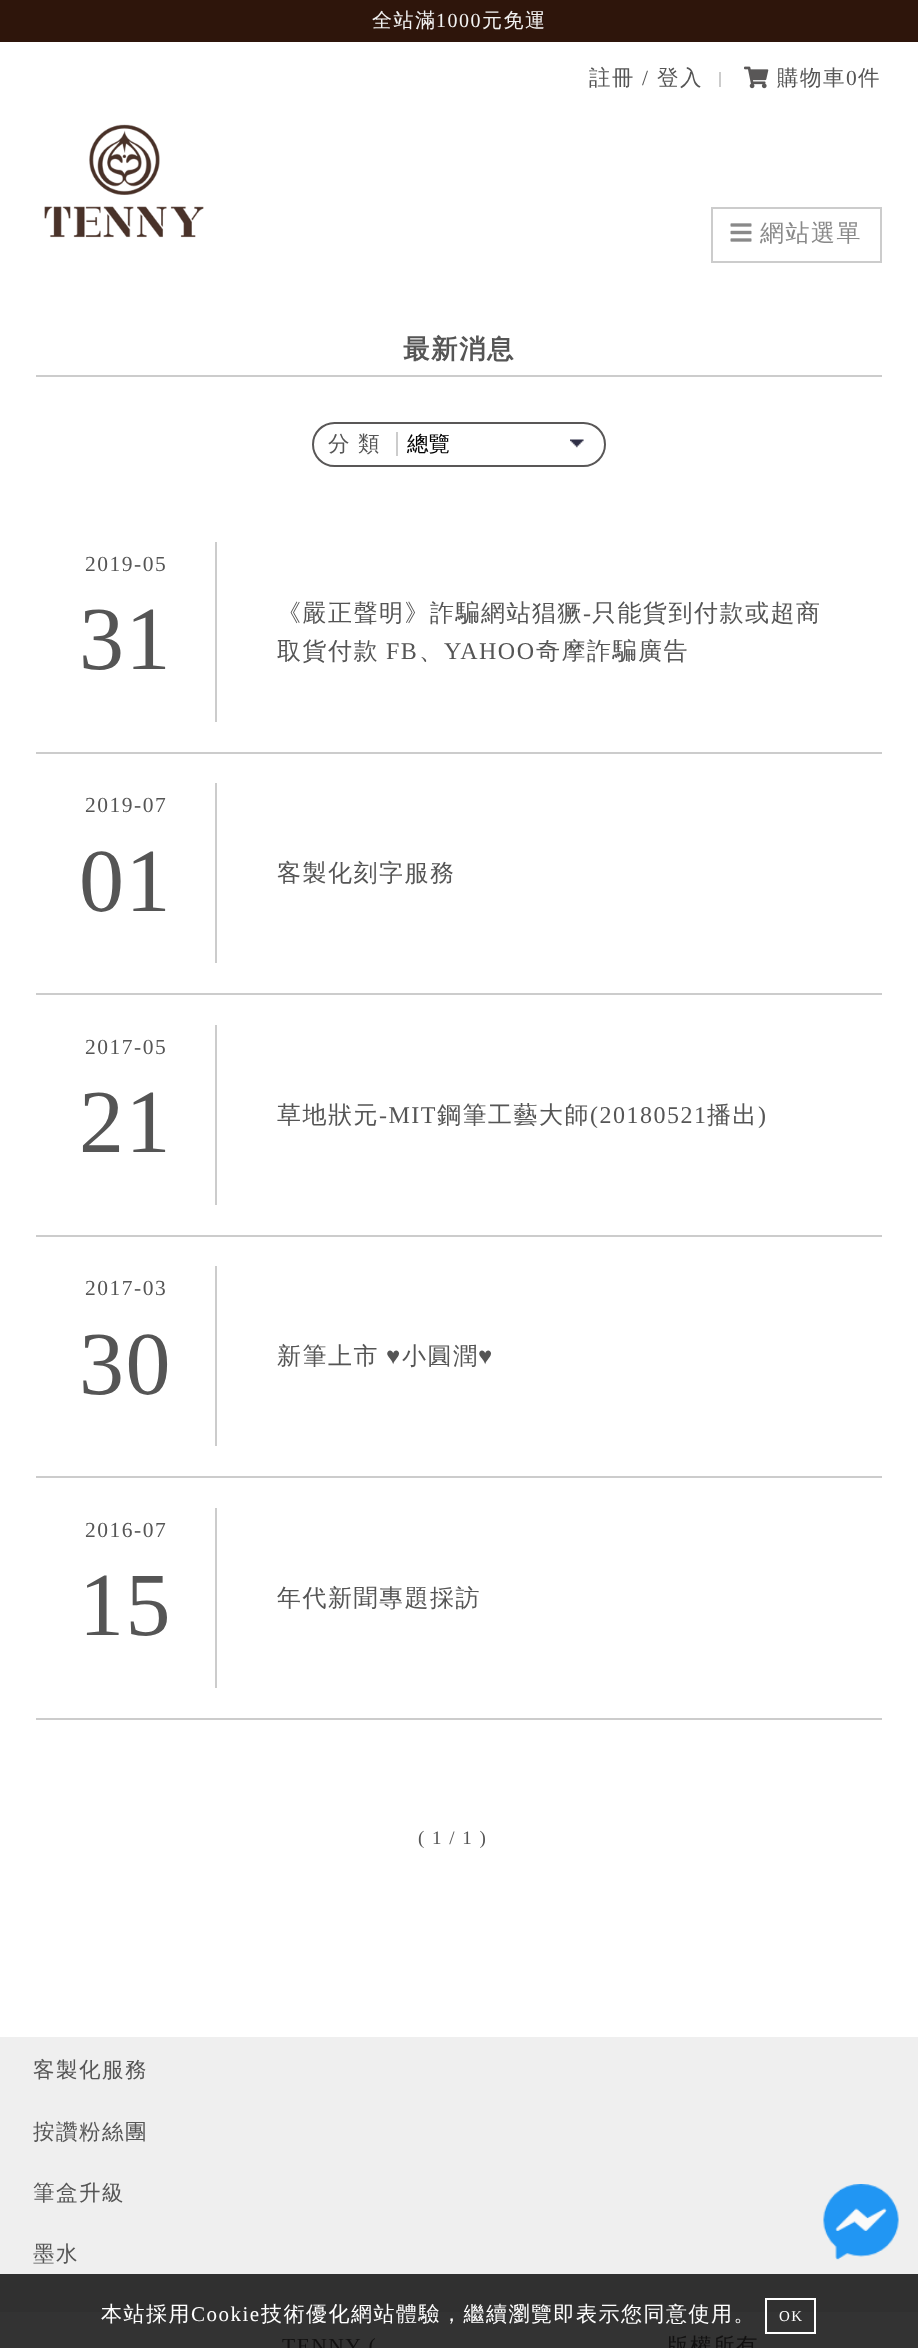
async function draw(canvas) {
  canvas.width = 918;
  canvas.height = 2348;
  const ctx = canvas.getContext('2d');
  ctx.miterLimit = 4;
  ctx.fontKerning = 'normal';
  function label(s, x, y, font, color) {
    ctx.font = font;
    ctx.fillStyle = color;
    ctx.fillText(s, x, y);
  }
  function rect(x, y, w, h, color) {
    ctx.fillStyle = color;
    ctx.fillRect(x, y, w, h);
  }
  async function image(src, x, y, w, h) {
    const img = new Image();
    img.src = src;
    await img.decode();
    ctx.drawImage(img, x, y, w, h);
  }

  rect(0, 0, 918, 2348, '#fff');
  rect(0, 2312, 918, 36, '#333');
  rect(0, 0, 918, 42, '#2e150b');
  ctx.letterSpacing = '1.5px';
  label('全站滿', 372, 27, '500 20px WenQuanYi Zen Hei', '#f2f2f2');
  label('1000', 436, 27, '20px Liberation Serif', '#f2f2f2');
  label('元免運', 482, 27, '500 20px WenQuanYi Zen Hei', '#f2f2f2');
  label('註冊', 589, 85, '500 21.5px WenQuanYi Zen Hei', '#555');
  label('/', 642, 85, '21.5px Liberation Serif', '#555');
  label('登入', 657, 85, '500 21.5px WenQuanYi Zen Hei', '#555');
  rect(719, 72, 2, 15, '#ccc');
  await image('assets/img1.png', 744, 66, 25, 23);
  label('購物車', 777, 85, '500 21.5px WenQuanYi Zen Hei', '#555');
  label('0', 846, 85, '21.5px Liberation Serif', '#555');
  label('件', 858, 85, '500 21.5px WenQuanYi Zen Hei', '#555');
  await image('assets/img2.png', 44, 124, 160, 114);
  ctx.strokeStyle = '#ccc';
  ctx.lineWidth = 2;
  ctx.strokeRect(712, 208, 169, 54);
  await image('assets/img3.png', 730, 223, 22, 19);
  label('網站選單', 760, 241, '500 24px WenQuanYi Zen Hei', '#898989');
  rect(36, 375, 846, 2, '#ccc');
  label('最新消息', 403, 358, 'bold 26.5px WenQuanYi Zen Hei', '#555');
  ctx.beginPath();
  ctx.roundRect(313, 423, 292, 43, 21.5);
  ctx.strokeStyle = '#595757';
  ctx.stroke();
  label('分', 328, 451, '500 21.5px WenQuanYi Zen Hei', '#555');
  label('類', 358, 451, '500 21.5px WenQuanYi Zen Hei', '#555');
  rect(396, 432, 2, 24, '#ccc');
  await image('assets/img4.png', 570, 439, 14, 9);
  ctx.letterSpacing = '0px';
  label('總覽', 407, 451, '500 21.5px WenQuanYi Zen Hei', '#000');
  rect(36, 752, 846, 2, '#ccc');
  rect(215, 542, 2, 180, '#ccc');
  ctx.letterSpacing = '1.5px';
  label('2019-05', 85, 571, '21.5px Liberation Serif', '#555');
  label('31', 79, 669, '90px Liberation Serif', '#555');
  label('《嚴正聲明》詐騙網站猖獗', 277, 621, '500 24px WenQuanYi Zen Hei', '#555');
  label('-', 583, 621, '24px Liberation Serif', '#555');
  label('只能貨到付款或超商', 592, 621, '500 24px WenQuanYi Zen Hei', '#555');
  label('取貨付款', 277, 659, '500 24px WenQuanYi Zen Hei', '#555');
  label('FB', 386, 659, '24px Liberation Serif', '#555');
  label('、', 419, 659, '500 24px WenQuanYi Zen Hei', '#555');
  label('YAHOO', 444, 659, '24px Liberation Serif', '#555');
  label('奇摩詐騙廣告', 536, 659, '500 24px WenQuanYi Zen Hei', '#555');
  rect(36, 993, 846, 2, '#ccc');
  rect(215, 783, 2, 180, '#ccc');
  label('2019-07', 85, 812, '21.5px Liberation Serif', '#555');
  label('01', 79, 911, '90px Liberation Serif', '#555');
  label('客製化刻字服務', 277, 881, '500 24px WenQuanYi Zen Hei', '#555');
  rect(36, 1235, 846, 2, '#ccc');
  rect(215, 1025, 2, 180, '#ccc');
  label('2017-05', 85, 1054, '21.5px Liberation Serif', '#555');
  label('21', 79, 1152, '90px Liberation Serif', '#555');
  label('草地狀元', 277, 1123, '500 24px WenQuanYi Zen Hei', '#555');
  label('-MIT', 379, 1123, '24px Liberation Serif', '#555');
  label('鋼筆工藝大師', 437, 1123, '500 24px WenQuanYi Zen Hei', '#555');
  label('(20180521', 590, 1123, '24px Liberation Serif', '#555');
  label('播出', 707, 1123, '500 24px WenQuanYi Zen Hei', '#555');
  label(')', 758, 1123, '24px Liberation Serif', '#555');
  rect(36, 1476, 846, 2, '#ccc');
  rect(215, 1266, 2, 180, '#ccc');
  label('2017-03', 85, 1295, '21.5px Liberation Serif', '#555');
  label('30', 79, 1394, '90px Liberation Serif', '#555');
  label('新筆上市', 277, 1364, '500 24px WenQuanYi Zen Hei', '#555');
  label('♥', 386, 1364, '24px Liberation Serif', '#555');
  label('小圓潤', 402, 1364, '500 24px WenQuanYi Zen Hei', '#555');
  label('♥', 478, 1364, '24px Liberation Serif', '#555');
  rect(36, 1718, 846, 2, '#ccc');
  rect(215, 1508, 2, 180, '#ccc');
  label('2016-07', 85, 1537, '21.5px Liberation Serif', '#555');
  label('15', 79, 1635, '90px Liberation Serif', '#555');
  label('年代新聞專題採訪', 277, 1606, '500 24px WenQuanYi Zen Hei', '#555');
  label('( 1 / 1 )', 418, 1844, '19px Liberation Serif', '#555');
  rect(0, 2037, 918, 237, '#efefef');
  rect(0, 2274, 918, 38, '#303030');
  label('客製化服務', 33, 2077, '500 21.5px WenQuanYi Zen Hei', '#555');
  label('按讚粉絲團', 33, 2139, '500 21.5px WenQuanYi Zen Hei', '#555');
  label('筆盒升級', 33, 2200, '500 21.5px WenQuanYi Zen Hei', '#555');
  label('墨水', 33, 2261, '500 21.5px WenQuanYi Zen Hei', '#555');
  label('TENNY (', 282, 2353, '21.5px Liberation Serif', '#121111');
  label('版權所有', 667, 2353, '500 21.5px WenQuanYi Zen Hei', '#121111');
  await image('assets/img5.png', 823, 2184, 76, 76);
  label('本站採用', 101, 2321, '500 21px WenQuanYi Zen Hei', '#fff');
  label('Cookie', 191, 2321, '21px Liberation Serif', '#fff');
  label('技術優化網站體驗，繼續瀏覽即表示您同意使用。', 261, 2321, '500 21px WenQuanYi Zen Hei', '#fff');
  ctx.strokeStyle = '#fff';
  ctx.strokeRect(766, 2299, 49, 34);
  label('OK', 779, 2321, '15px Liberation Serif', '#fff');
}

draw(document.querySelector('canvas'));
